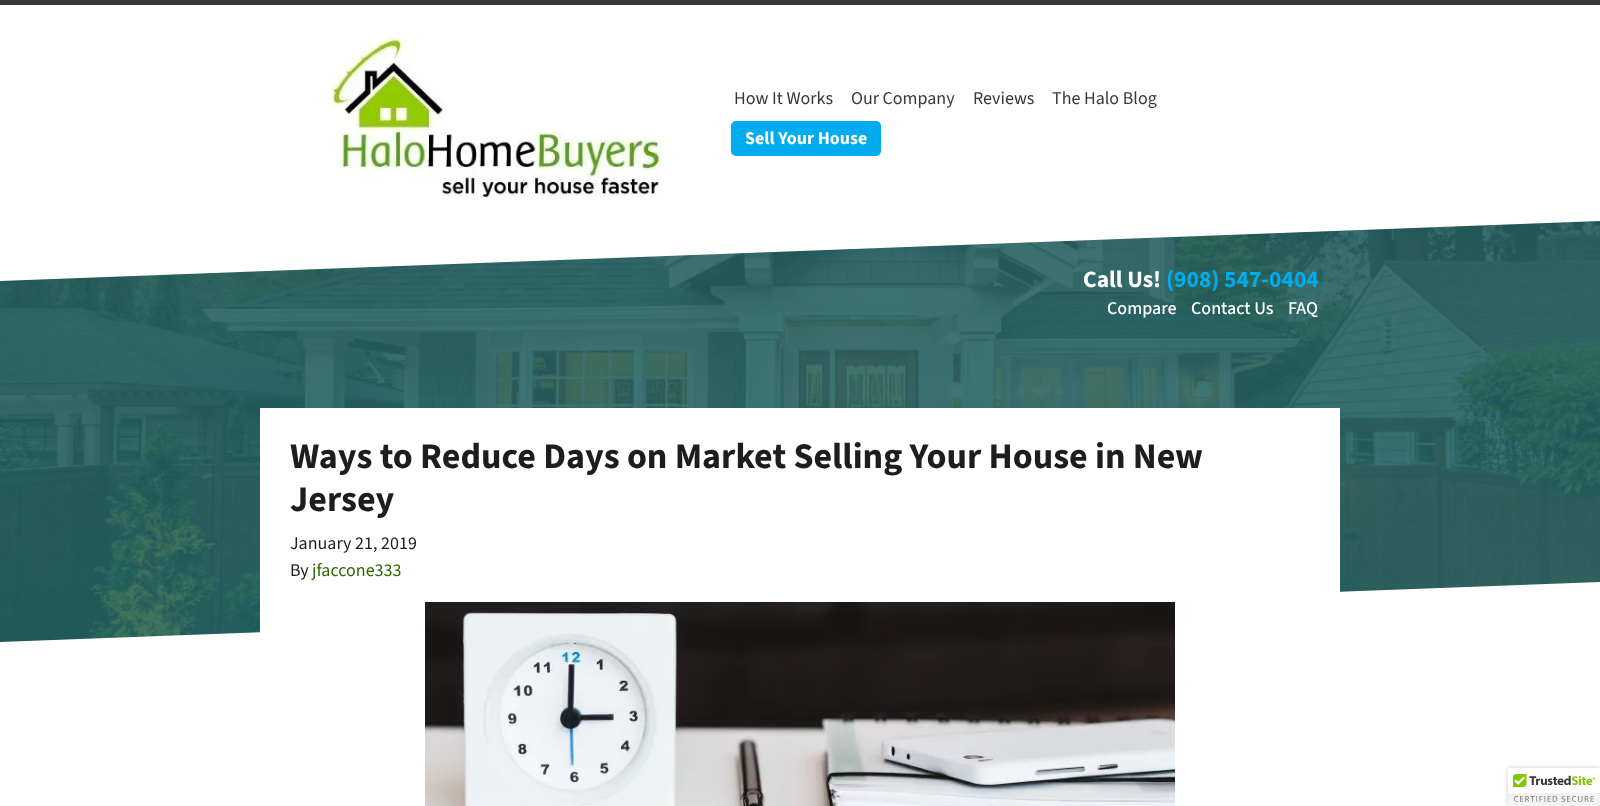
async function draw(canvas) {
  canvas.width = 1600;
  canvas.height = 806;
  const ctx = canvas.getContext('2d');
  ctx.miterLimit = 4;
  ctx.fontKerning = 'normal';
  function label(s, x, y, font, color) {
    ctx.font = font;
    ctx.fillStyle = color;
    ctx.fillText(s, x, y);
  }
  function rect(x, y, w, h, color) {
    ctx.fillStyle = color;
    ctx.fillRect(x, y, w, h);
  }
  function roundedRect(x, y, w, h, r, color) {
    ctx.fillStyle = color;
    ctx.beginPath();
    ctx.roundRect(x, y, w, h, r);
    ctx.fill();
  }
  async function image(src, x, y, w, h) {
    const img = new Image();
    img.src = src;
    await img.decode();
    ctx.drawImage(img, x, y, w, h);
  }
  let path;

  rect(0, 0, 1600, 806, '#fff');
  rect(0, 0, 1600, 5, '#383838');
  await image('assets/img1.png', 327, 32, 337, 165);
  label('How It Works', 734, 104, '18px "Source Sans 3"', '#383838');
  label('Our Company', 851, 104, '18px "Source Sans 3"', '#383838');
  label('Reviews', 973, 104, '18px "Source Sans 3"', '#383838');
  label('The Halo Blog', 1052, 104, '18px "Source Sans 3"', '#383838');
  roundedRect(731, 121, 150, 35, 5, '#00aced');
  label('Sell Your House', 745, 144, 'bold 18px "Source Sans 3"', '#fff');
  await image('assets/img2.png', 0, 221, 1600, 421);
  path = new Path2D('M1600 221V217H0V281Z');
  ctx.fill(path);
  label('Call Us!', 1083, 287, 'bold 23.5px "Source Sans 3"', '#fff');
  label('(908) 547-0404', 1166, 287, 'bold 23.5px "Source Sans 3"', '#00aced');
  label('Compare', 1107, 314, '500 18px "Source Sans 3"', '#fff');
  label('Contact Us', 1191, 314, '500 18px "Source Sans 3"', '#fff');
  label('FAQ', 1288, 314, '500 18px "Source Sans 3"', '#fff');
  path = new Path2D('M0 642V646H1600V582Z');
  ctx.fill(path);
  rect(260, 408, 1080, 225, '#fff');
  label('Ways to Reduce Days on Market Selling Your House in New', 290, 468, 'bold 36px "Source Sans 3"', '#1d1d1d');
  label('Jersey', 290, 511, 'bold 36px "Source Sans 3"', '#1d1d1d');
  label('January 21, 2019', 290, 549, '18px "Source Sans 3"', '#1d1d1d');
  label('By', 290, 576, '18px "Source Sans 3"', '#1d1d1d');
  label('jfaccone333', 312, 576, '18px "Source Sans 3"', '#2c6700');
  await image('assets/img3.png', 425, 602, 750, 204);
  ctx.fillStyle = '#00000033';
  ctx.filter = 'blur(2.5px)';
  ctx.beginPath();
  ctx.roundRect(1508, 768, 92, 38, 2);
  ctx.fill();
  ctx.filter = 'none';
  ctx.fillStyle = '#fff';
  ctx.beginPath();
  ctx.roundRect(1508, 768, 92, 38, [2, 0, 0, 0]);
  ctx.fill();
  await image('assets/img4.png', 1508, 768, 92, 38);
}

draw(document.querySelector('canvas'));
